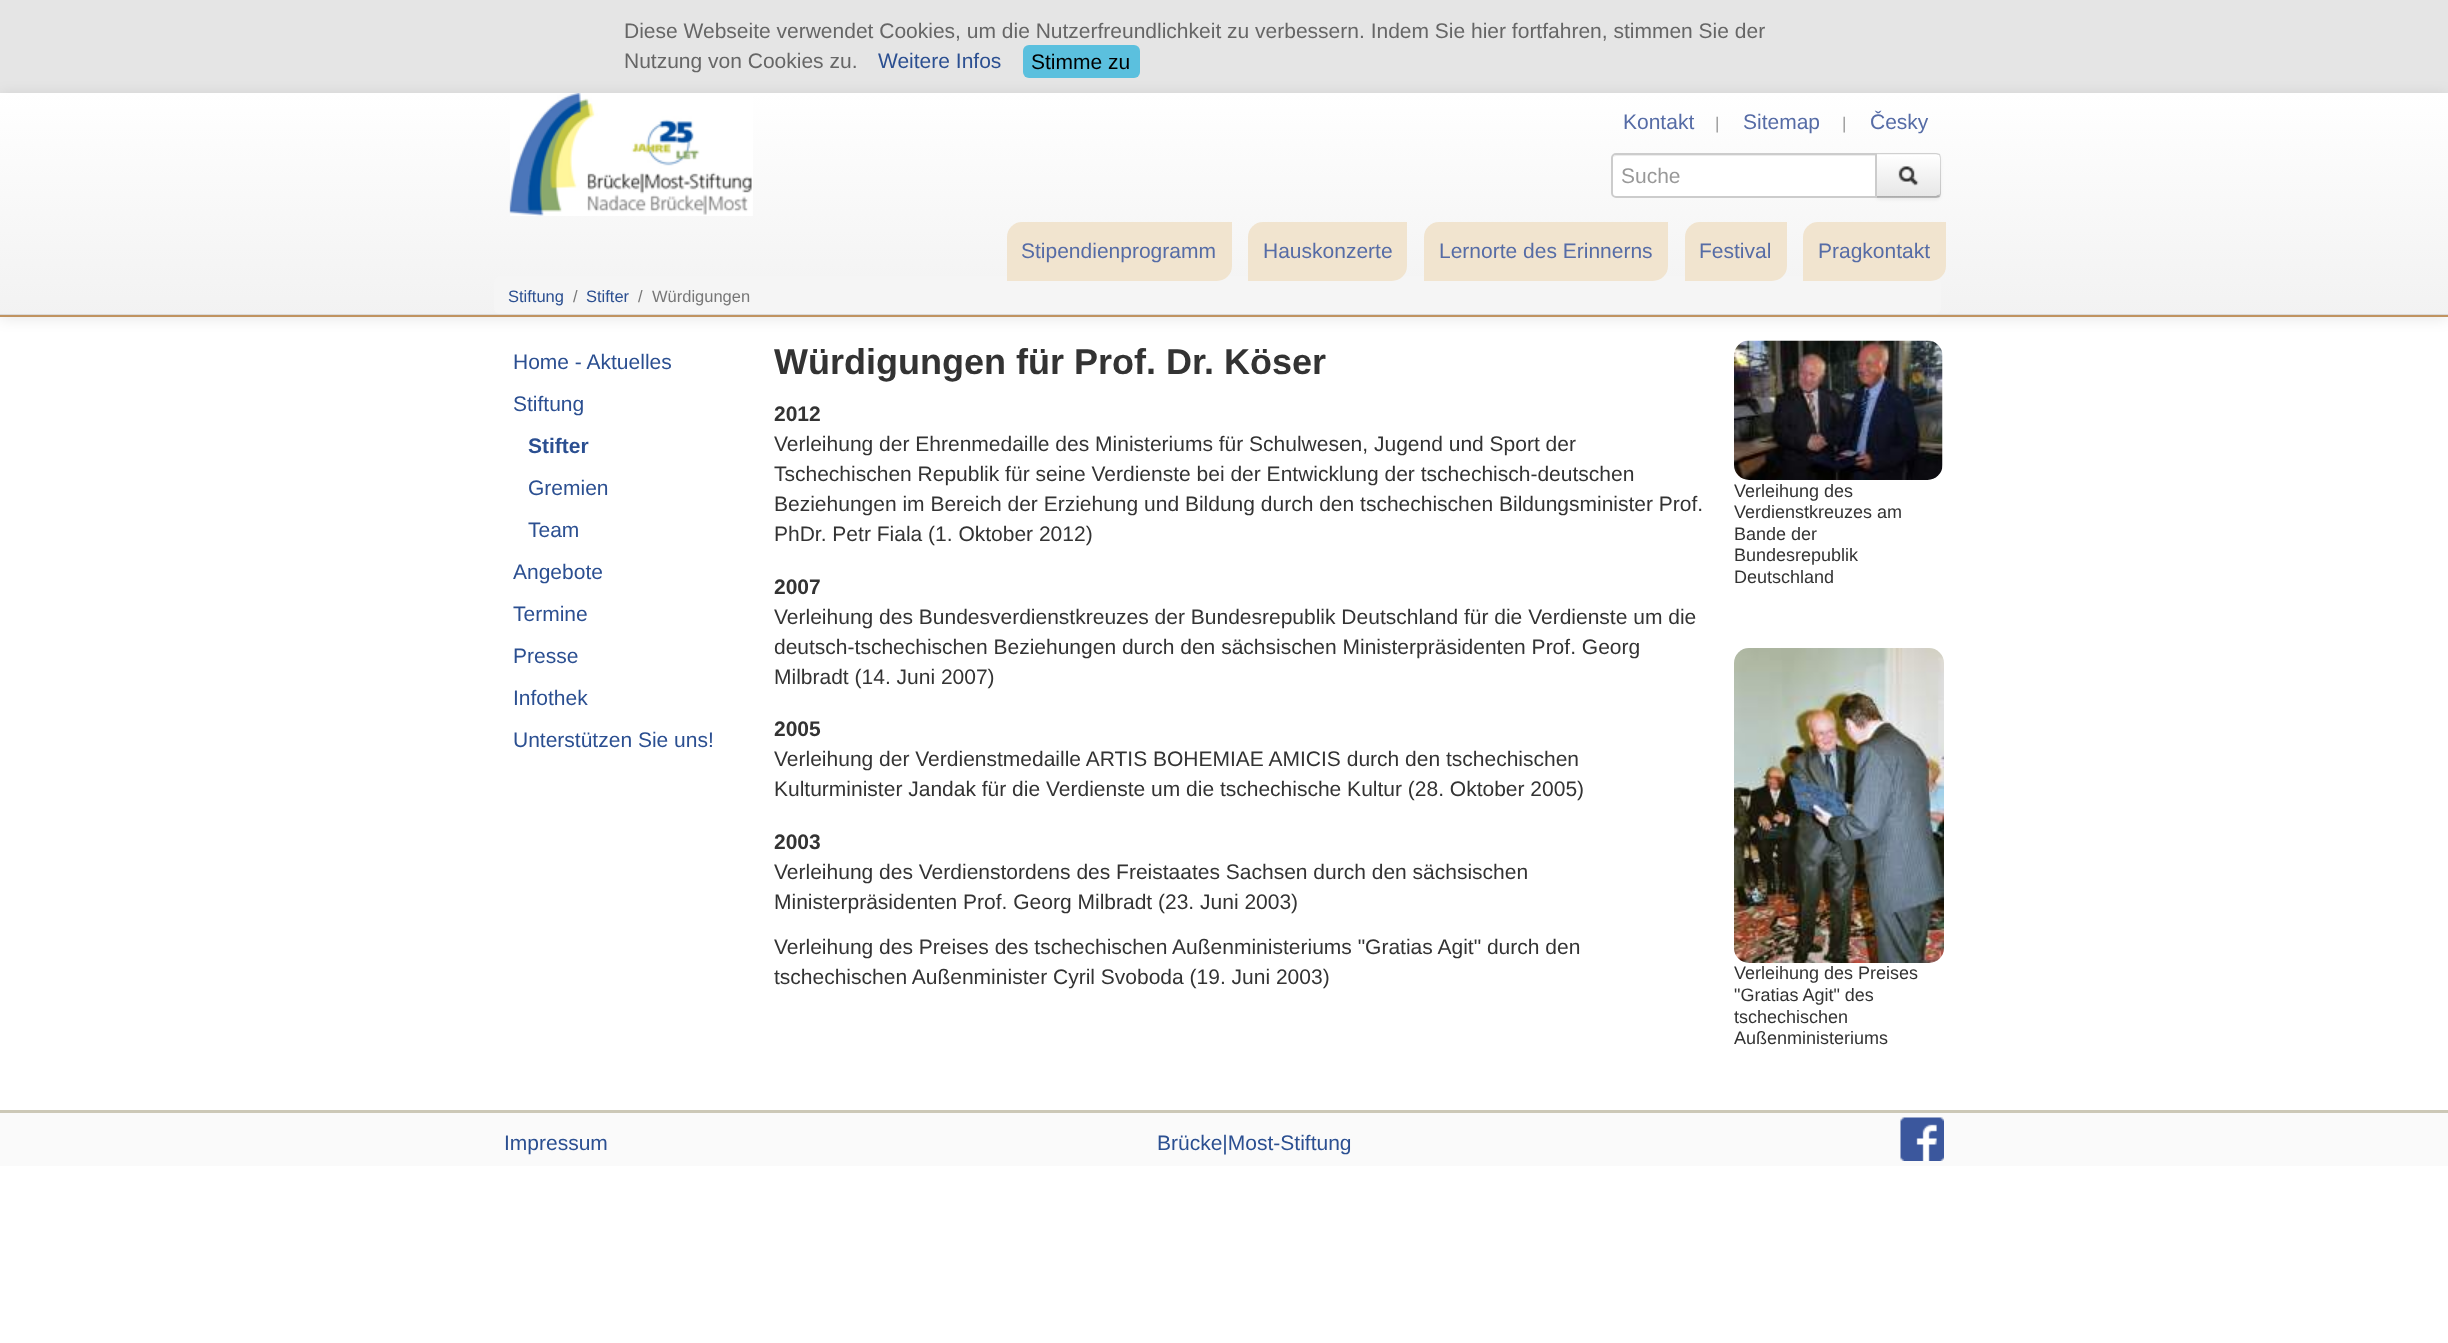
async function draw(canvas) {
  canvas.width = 2448;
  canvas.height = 1343;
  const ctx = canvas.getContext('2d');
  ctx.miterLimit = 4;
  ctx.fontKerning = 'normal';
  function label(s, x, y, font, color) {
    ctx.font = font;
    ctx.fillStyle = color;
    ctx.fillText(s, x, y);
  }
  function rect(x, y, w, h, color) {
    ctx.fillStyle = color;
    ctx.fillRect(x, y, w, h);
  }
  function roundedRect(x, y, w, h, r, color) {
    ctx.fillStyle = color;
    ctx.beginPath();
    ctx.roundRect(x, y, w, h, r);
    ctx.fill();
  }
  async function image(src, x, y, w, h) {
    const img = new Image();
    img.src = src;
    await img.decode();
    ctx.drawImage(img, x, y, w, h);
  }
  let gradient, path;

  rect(0, 0, 2448, 1343, '#fff');
  rect(0, 0, 2448, 93, '#e5e5e5');
  label('Diese Webseite verwendet Cookies, um die Nutzerfreundlichkeit zu verbessern. Indem Sie hier fortfahren, stimmen Sie der', 624, 38, '21px Liberation Sans', '#666');
  label('Nutzung von Cookies zu.', 624, 68, '21px Liberation Sans', '#666');
  label('Weitere Infos', 878, 68, '21px Liberation Sans', '#2b4f91');
  roundedRect(1023, 45, 117, 33, 6, '#5bc0de');
  label('Stimme zu', 1031, 69, '21px Liberation Sans', '#000');
  await image('assets/img3.png', 1734, 340, 209, 140);
  ctx.fillStyle = '#0000001a';
  ctx.filter = 'blur(7.5px)';
  ctx.beginPath();
  ctx.rect(0, 95, 2448, 223);
  ctx.fill();
  ctx.filter = 'none';
  gradient = ctx.createLinearGradient(1224, 93, 1224, 315);
  gradient.addColorStop(0, '#fff');
  gradient.addColorStop(1, '#f2f2f2');
  ctx.fillStyle = gradient;
  ctx.fillRect(0, 93, 2448, 221);
  gradient = ctx.createLinearGradient(1224, 93, 1224, 315);
  gradient.addColorStop(0, '#e6e6e6');
  gradient.addColorStop(1, '#dadada');
  ctx.fillStyle = gradient;
  ctx.fillRect(0, 314, 2448, 1);
  rect(0, 315, 2448, 2, '#c09360');
  await image('assets/img1.png', 509, 93, 244, 123);
  label('Kontakt', 1623, 129, '21px Liberation Sans', '#566ca6');
  label('|', 1715, 129, '17px Liberation Sans', '#999');
  label('Sitemap', 1743, 129, '21px Liberation Sans', '#566ca6');
  label('|', 1842, 129, '17px Liberation Sans', '#999');
  label('Česky', 1870, 129, '21px Liberation Sans', '#566ca6');
  ctx.fillStyle = '#0000000d';
  ctx.filter = 'blur(1.5px)';
  ctx.beginPath();
  ctx.roundRect(1875, 155, 66, 45, 5);
  ctx.fill();
  ctx.filter = 'none';
  ctx.fillStyle = '#f5f5f5';
  ctx.beginPath();
  ctx.roundRect(1875, 153, 66, 45, [0, 5, 5, 0]);
  ctx.fill();
  ctx.fillStyle = '#00000026';
  path = new Path2D('M1875 153L1876 154H1936L1939 155L1940 154C1939 154 1938 153 1936 153Z');
  ctx.fill(path);
  ctx.save();
  ctx.beginPath();
  ctx.roundRect(1875, 153, 66, 45, [0, 5, 5, 0]);
  ctx.clip();
  gradient = ctx.createLinearGradient(1908, 155, 1908, 197);
  gradient.addColorStop(0, '#fff');
  gradient.addColorStop(1, '#e6e6e6');
  ctx.fillStyle = gradient;
  ctx.fillRect(1877, 155, 64, 42);
  ctx.restore();
  path = new Path2D('M1941 194V158C1941 156 1940 155 1940 154L1939 155L1940 158V194L1938 195L1940 197Z');
  ctx.fill(path);
  ctx.fillStyle = '#00000040';
  path = new Path2D('M1936 198C1938 198 1939 197 1940 197L1938 195L1936 196H1877L1875 198Z');
  ctx.fill(path);
  ctx.fillStyle = '#fff';
  ctx.beginPath();
  ctx.roundRect(1611, 153, 266, 45, [5, 0, 0, 5]);
  ctx.fill();
  ctx.fillStyle = '#ececec';
  path = new Path2D('M1616 156H1875V155H1616C1615 155 1614 156 1613 157Z');
  ctx.fill(path);
  ctx.beginPath();
  ctx.roundRect(1612, 154, 264, 43, [4, 0, 0, 4]);
  ctx.strokeStyle = '#ccc';
  ctx.lineWidth = 2;
  ctx.stroke();
  label('Suche', 1621, 183, '21px Liberation Sans', '#999');
  await image('assets/img2.png', 1898, 166, 21, 20);
  roundedRect(494, 276, 1447, 38, 6, '#f5f5f5');
  ctx.fillStyle = '#f1e4cf';
  ctx.beginPath();
  ctx.roundRect(1007, 222, 225, 59, [15, 0, 15, 0]);
  ctx.fill();
  label('Stipendienprogramm', 1021, 258, '21px Liberation Sans', '#566ca6');
  ctx.fillStyle = '#f1e4cf';
  ctx.beginPath();
  ctx.roundRect(1248, 222, 159, 59, [15, 0, 15, 0]);
  ctx.fill();
  label('Hauskonzerte', 1263, 258, '21px Liberation Sans', '#566ca6');
  ctx.fillStyle = '#f1e4cf';
  ctx.beginPath();
  ctx.roundRect(1424, 222, 244, 59, [15, 0, 15, 0]);
  ctx.fill();
  label('Lernorte des Erinnerns', 1439, 258, '21px Liberation Sans', '#566ca6');
  ctx.fillStyle = '#f1e4cf';
  ctx.beginPath();
  ctx.roundRect(1685, 222, 102, 59, [15, 0, 15, 0]);
  ctx.fill();
  label('Festival', 1699, 258, '21px Liberation Sans', '#566ca6');
  ctx.fillStyle = '#f1e4cf';
  ctx.beginPath();
  ctx.roundRect(1803, 222, 143, 59, [15, 0, 15, 0]);
  ctx.fill();
  label('Pragkontakt', 1818, 258, '21px Liberation Sans', '#566ca6');
  label('Stiftung', 508, 302, '16.5px Liberation Sans', '#2b4f91');
  label('/', 573, 302, '16.5px Liberation Sans', '#777');
  label('Stifter', 586, 302, '16.5px Liberation Sans', '#2b4f91');
  label('/', 638, 302, '16.5px Liberation Sans', '#777');
  label('Würdigungen', 652, 302, '16.5px Liberation Sans', '#777');
  label('Home - Aktuelles', 513, 369, '21px Liberation Sans', '#2b4f91');
  label('Stiftung', 513, 411, '21px Liberation Sans', '#2b4f91');
  label('Stifter', 528, 453, 'bold 21px Liberation Sans', '#2b4f91');
  label('Gremien', 528, 495, '21px Liberation Sans', '#2b4f91');
  label('Team', 528, 537, '21px Liberation Sans', '#2b4f91');
  label('Angebote', 513, 579, '21px Liberation Sans', '#2b4f91');
  label('Termine', 513, 621, '21px Liberation Sans', '#2b4f91');
  label('Presse', 513, 663, '21px Liberation Sans', '#2b4f91');
  label('Infothek', 513, 705, '21px Liberation Sans', '#2b4f91');
  label('Unterstützen Sie uns!', 513, 747, '21px Liberation Sans', '#2b4f91');
  label('Würdigungen für Prof. Dr. Köser', 774, 374, 'bold 36px Liberation Sans', '#333');
  label('2012', 774, 421, 'bold 21px Liberation Sans', '#333');
  label('Verleihung der Ehrenmedaille des Ministeriums für Schulwesen, Jugend und Sport der', 774, 451, '21px Liberation Sans', '#333');
  label('Tschechischen Republik für seine Verdienste bei der Entwicklung der tschechisch-deutschen', 774, 481, '21px Liberation Sans', '#333');
  label('Beziehungen im Bereich der Erziehung und Bildung durch den tschechischen Bildungsminister Prof.', 774, 511, '21px Liberation Sans', '#333');
  label('PhDr. Petr Fiala (1. Oktober 2012)', 774, 541, '21px Liberation Sans', '#333');
  label('2007', 774, 594, 'bold 21px Liberation Sans', '#333');
  label('Verleihung des Bundesverdienstkreuzes der Bundesrepublik Deutschland für die Verdienste um die', 774, 624, '21px Liberation Sans', '#333');
  label('deutsch-tschechischen Beziehungen durch den sächsischen Ministerpräsidenten Prof. Georg', 774, 654, '21px Liberation Sans', '#333');
  label('Milbradt (14. Juni 2007)', 774, 684, '21px Liberation Sans', '#333');
  label('2005', 774, 736, 'bold 21px Liberation Sans', '#333');
  label('Verleihung der Verdienstmedaille ARTIS BOHEMIAE AMICIS durch den tschechischen', 774, 766, '21px Liberation Sans', '#333');
  label('Kulturminister Jandak für die Verdienste um die tschechische Kultur (28. Oktober 2005)', 774, 796, '21px Liberation Sans', '#333');
  label('2003', 774, 849, 'bold 21px Liberation Sans', '#333');
  label('Verleihung des Verdienstordens des Freistaates Sachsen durch den sächsischen', 774, 879, '21px Liberation Sans', '#333');
  label('Ministerpräsidenten Prof. Georg Milbradt (23. Juni 2003)', 774, 909, '21px Liberation Sans', '#333');
  label('Verleihung des Preises des tschechischen Außenministeriums "Gratias Agit" durch den', 774, 954, '21px Liberation Sans', '#333');
  label('tschechischen Außenminister Cyril Svoboda (19. Juni 2003)', 774, 984, '21px Liberation Sans', '#333');
  label('Verleihung des', 1734, 497, '18px Liberation Sans', '#333');
  label('Verdienstkreuzes am', 1734, 518, '18px Liberation Sans', '#333');
  label('Bande der', 1734, 540, '18px Liberation Sans', '#333');
  label('Bundesrepublik', 1734, 561, '18px Liberation Sans', '#333');
  label('Deutschland', 1734, 583, '18px Liberation Sans', '#333');
  await image('assets/img4.png', 1734, 648, 210, 315);
  label('Verleihung des Preises', 1734, 979, '18px Liberation Sans', '#333');
  label('"Gratias Agit" des', 1734, 1001, '18px Liberation Sans', '#333');
  label('tschechischen', 1734, 1023, '18px Liberation Sans', '#333');
  label('Außenministeriums', 1734, 1044, '18px Liberation Sans', '#333');
  rect(0, 1113, 2448, 53, '#fafafa');
  rect(0, 1110, 2448, 3, '#ccc8b7');
  label('Impressum', 504, 1150, '21px Liberation Sans', '#2b4f91');
  label('Brücke|Most-Stiftung', 1157, 1150, '21px Liberation Sans', '#2b4f91');
  await image('assets/img5.png', 1900, 1117, 44, 44);
}

draw(document.querySelector('canvas'));
